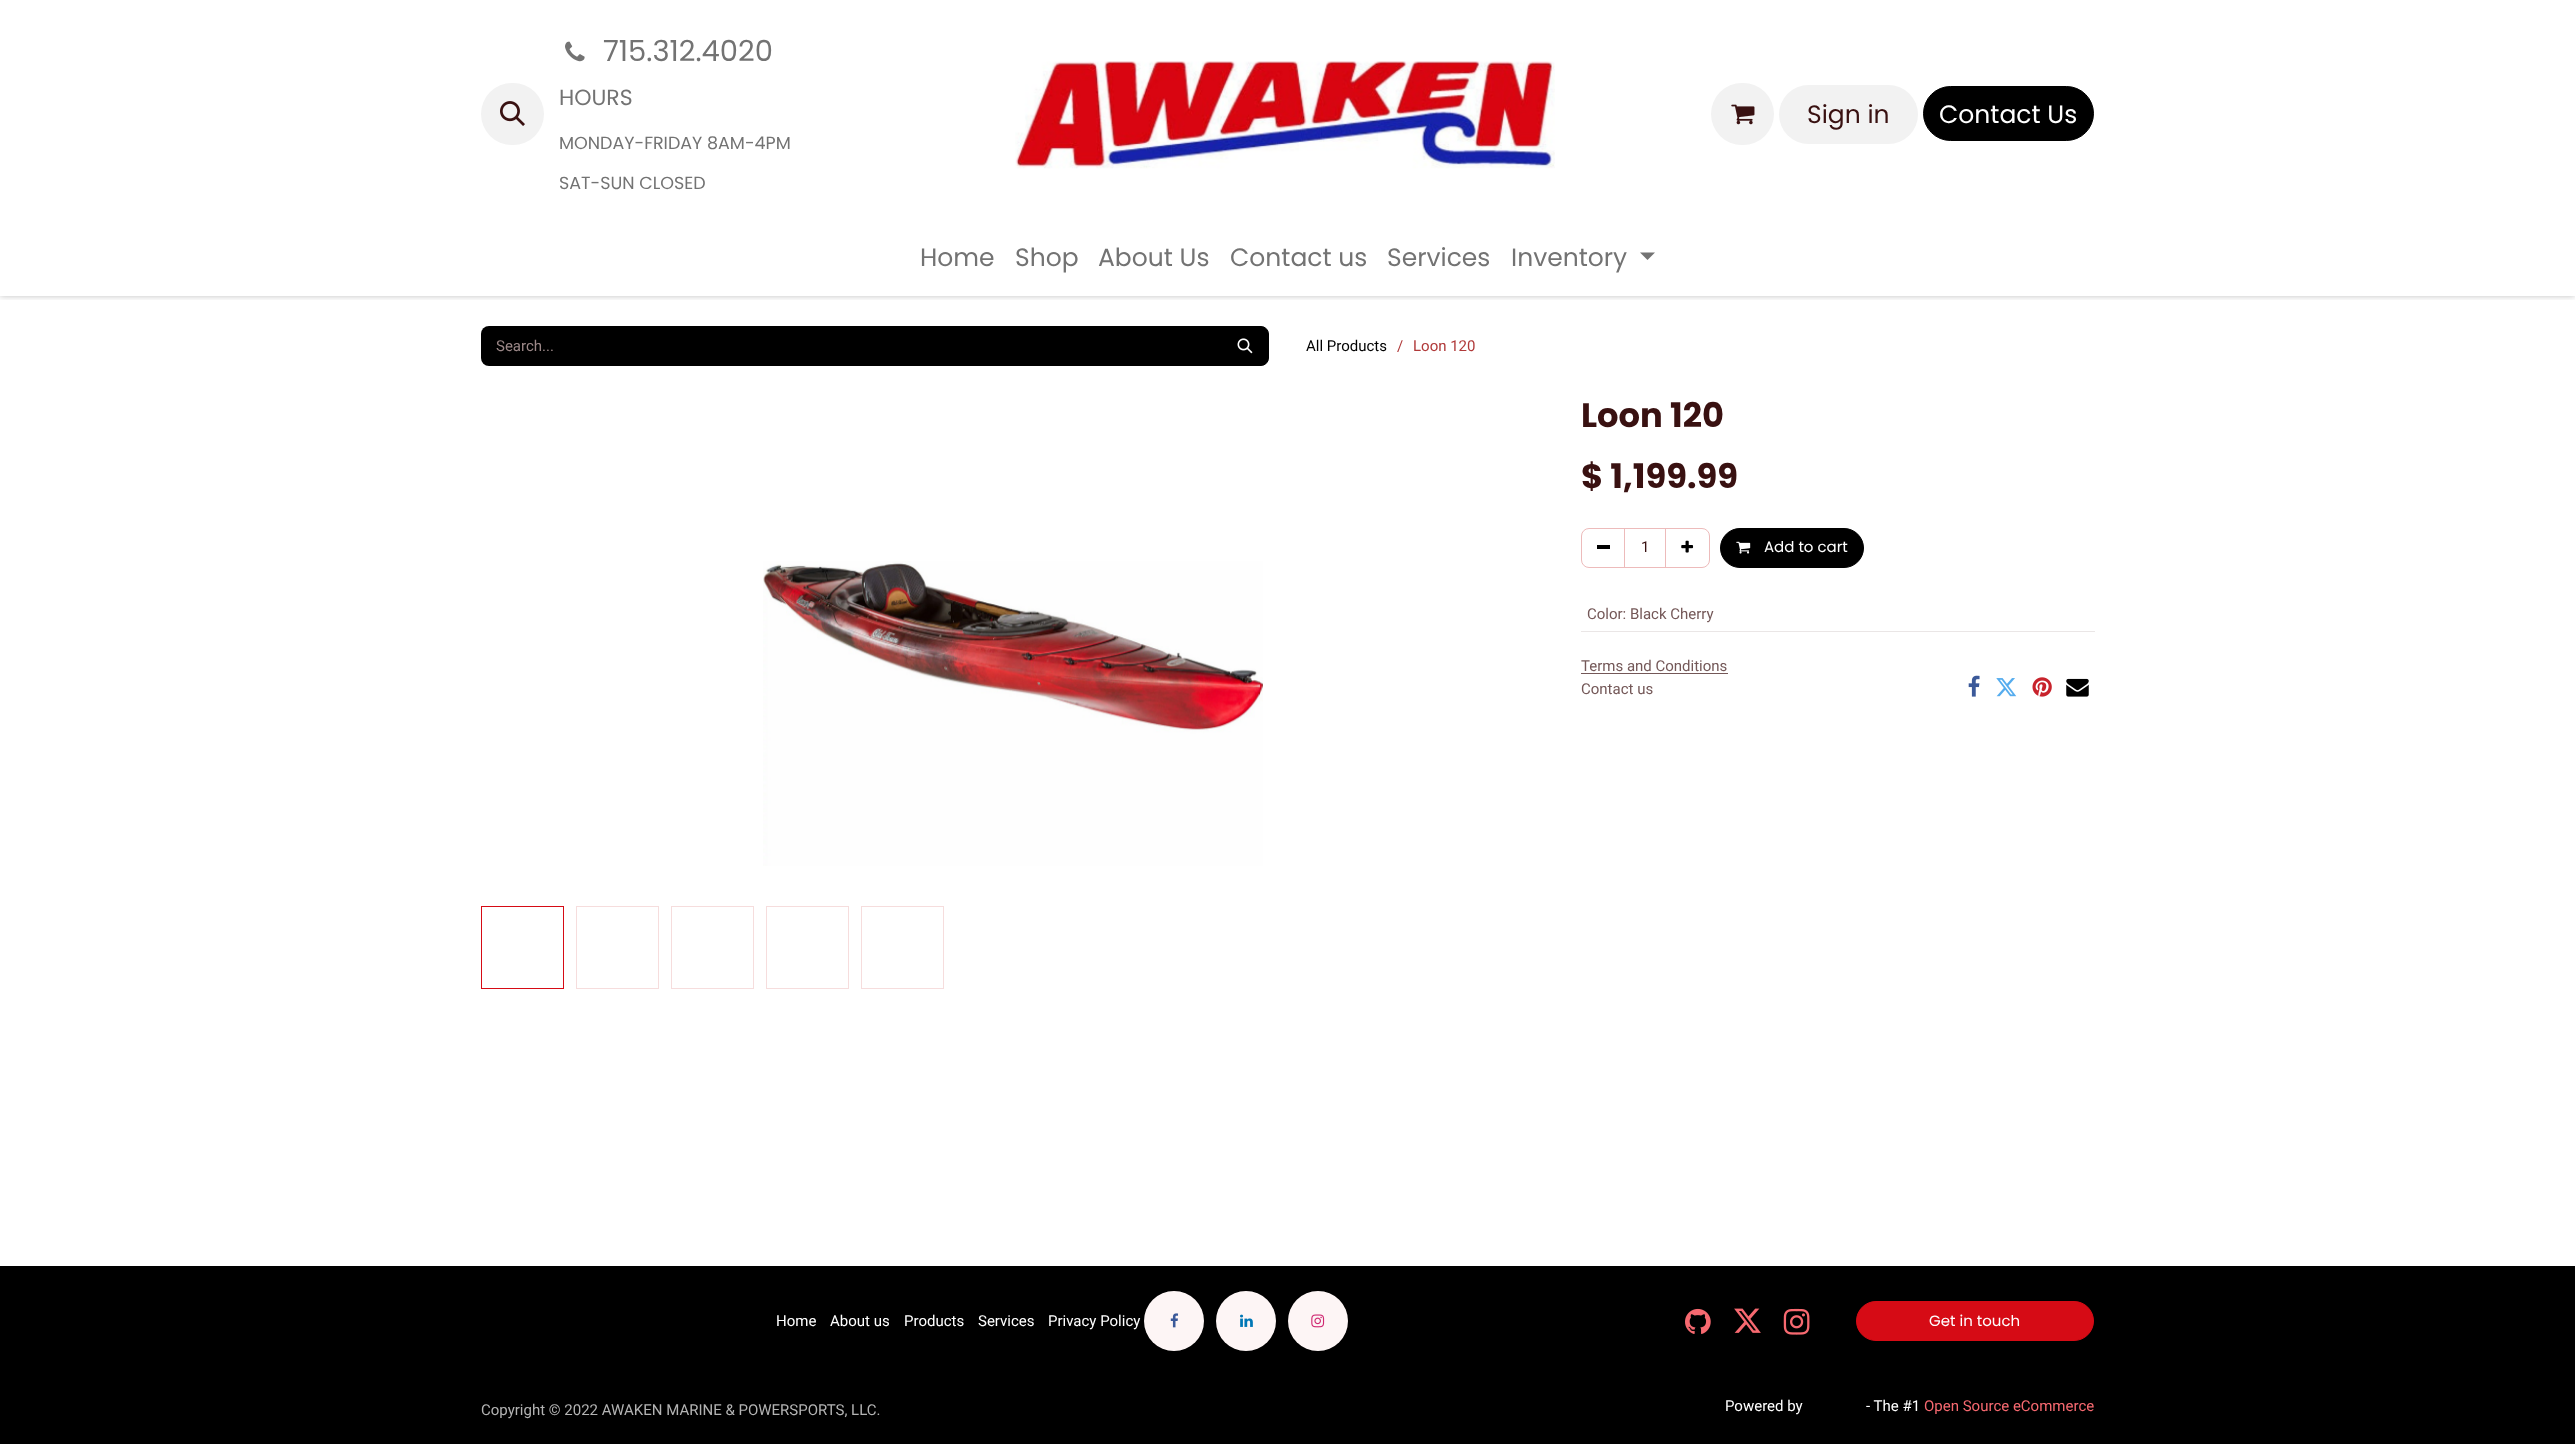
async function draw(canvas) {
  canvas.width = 2575;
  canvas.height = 1444;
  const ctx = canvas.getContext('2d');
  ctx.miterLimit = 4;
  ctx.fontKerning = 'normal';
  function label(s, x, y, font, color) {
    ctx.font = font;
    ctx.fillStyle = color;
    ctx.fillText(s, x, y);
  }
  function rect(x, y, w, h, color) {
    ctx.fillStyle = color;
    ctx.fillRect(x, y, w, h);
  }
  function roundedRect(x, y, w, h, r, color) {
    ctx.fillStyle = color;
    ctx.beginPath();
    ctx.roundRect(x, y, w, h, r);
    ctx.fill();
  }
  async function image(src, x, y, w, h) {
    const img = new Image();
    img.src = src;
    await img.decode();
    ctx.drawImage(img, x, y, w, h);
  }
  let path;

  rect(0, 0, 2575, 1444, '#fff');
  ctx.save();
  ctx.beginPath();
  ctx.rect(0, 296, 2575, 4);
  ctx.clip();
  ctx.fillStyle = '#00000040';
  ctx.filter = 'blur(3px)';
  ctx.beginPath();
  ctx.rect(0, 0, 2575, 296);
  ctx.fill();
  ctx.filter = 'none';
  ctx.restore();
  roundedRect(481, 83, 63, 62, 31, '#f2f2f2');
  await image('assets/img1.png', 500, 101, 25, 25);
  await image('assets/img2.png', 565, 41, 20, 21);
  label('715.312.4020', 603, 61, '29px Poppins', '#737373');
  label('HOURS', 559, 105, '22px Poppins', '#737373');
  label('MONDAY-FRIDAY 8AM-4PM', 559, 149, '17.5px Poppins', '#737373');
  label('SAT-SUN CLOSED', 559, 189, '17.5px Poppins', '#737373');
  await image('assets/img3.png', 1015, 61, 540, 108);
  roundedRect(1711, 83, 63, 62, 31, '#f2f2f2');
  await image('assets/img4.png', 1731, 104, 24, 21);
  roundedRect(1779, 85, 139, 59, 29.5, '#f2f2f2');
  label('Sign in', 1807, 123, '25px Poppins', '#391111');
  ctx.fillStyle = '#000';
  ctx.beginPath();
  ctx.roundRect(1923.5, 86.5, 170, 54, 27);
  ctx.fill();
  ctx.strokeStyle = '#000';
  ctx.stroke();
  label('Contact Us', 1939, 123, '25px Poppins', '#fff');
  label('Home', 920, 266, '25px Poppins', '#737373');
  label('Shop', 1015, 266, '25px Poppins', '#737373');
  label('About Us', 1098, 266, '25px Poppins', '#737373');
  label('Contact us', 1230, 266, '25px Poppins', '#737373');
  label('Services', 1387, 266, '25px Poppins', '#737373');
  label('Inventory', 1511, 266, '25px Poppins', '#737373');
  path = new Path2D('M1640 252.5H1655L1647.5 260Z');
  ctx.fill(path);
  ctx.fillStyle = '#000';
  ctx.beginPath();
  ctx.roundRect(481, 326, 742, 40, [8, 0, 0, 8]);
  ctx.fill();
  label('Search...', 496, 351, '15px Roboto', '#9c8888');
  ctx.fillStyle = '#000';
  ctx.beginPath();
  ctx.roundRect(1221.5, 326.5, 47, 39, [0, 7.5, 7.5, 0]);
  ctx.fill();
  ctx.stroke();
  await image('assets/img5.png', 1237, 338, 16, 16);
  label('All Products', 1306, 351, '15px Roboto', '#000');
  label('/', 1397, 351, '15px Roboto', '#b03939');
  label('Loon 120', 1413, 351, '15px Roboto', '#b03939');
  await image('assets/img6.png', 763, 561, 500, 305);
  ctx.strokeStyle = '#d60b15';
  ctx.strokeRect(481.5, 906.5, 82, 82);
  ctx.strokeStyle = '#f6dddd';
  ctx.strokeRect(576.5, 906.5, 82, 82);
  ctx.strokeRect(671.5, 906.5, 82, 82);
  ctx.strokeRect(766.5, 906.5, 82, 82);
  ctx.strokeRect(861.5, 906.5, 82, 82);
  label('Loon 120', 1581, 427, 'bold 33.75px Poppins', '#391111');
  label('$ 1,199.99', 1581, 488, 'bold 33.75px Poppins', '#391111');
  ctx.strokeStyle = '#edbbbb';
  ctx.strokeRect(1624.5, 528.5, 41, 39);
  ctx.beginPath();
  ctx.roundRect(1581.5, 528.5, 43, 39, [7.5, 0, 0, 7.5]);
  ctx.stroke();
  rect(1597, 545, 13, 4, '#000');
  label('1', 1641, 552, '15px Roboto', '#391111');
  ctx.beginPath();
  ctx.roundRect(1665.5, 528.5, 44, 39, [0, 7.5, 7.5, 0]);
  ctx.stroke();
  await image('assets/img7.png', 1681, 540, 13, 13);
  ctx.fillStyle = '#000';
  ctx.beginPath();
  ctx.roundRect(1720.5, 528.5, 143, 39, 19.5);
  ctx.fill();
  ctx.strokeStyle = '#000';
  ctx.stroke();
  await image('assets/img8.png', 1736, 541, 15, 13);
  label('Add to cart', 1764, 552, '15px Poppins', '#fff');
  rect(1581, 631, 514, 1, '#eae6e6');
  label('Color: Black Cherry', 1587, 619, '15px Roboto', '#745858');
  label('Terms and Conditions', 1581, 671, '15px Roboto', '#745858');
  rect(1581, 673, 147, 1, '#745858');
  label('Contact us', 1581, 694, '15px Roboto', '#745858');
  await image('assets/img9.png', 1968, 675, 12, 22);
  await image('assets/img10.png', 1996, 678, 21, 19);
  await image('assets/img11.png', 2032, 677, 20, 20);
  await image('assets/img12.png', 2066, 678, 23, 19);
  rect(0, 1266, 2575, 178, '#000');
  label('Home', 776, 1326, '15px Roboto', '#fff');
  label('About us', 830, 1326, '15px Roboto', '#fff');
  label('Products', 904, 1326, '15px Roboto', '#fff');
  label('Services', 978, 1326, '15px Roboto', '#fff');
  label('Privacy Policy', 1048, 1326, '15px Roboto', '#fff');
  ctx.fillStyle = '#fdf5f5';
  ctx.beginPath();
  ctx.arc(1174, 1321, 30, 0, 2 * Math.PI);
  ctx.fill();
  await image('assets/img13.png', 1170, 1313, 9, 15);
  ctx.beginPath();
  ctx.arc(1246, 1321, 30, 0, 2 * Math.PI);
  ctx.fill();
  await image('assets/img14.png', 1240, 1314, 13, 13);
  ctx.beginPath();
  ctx.arc(1318, 1321, 30, 0, 2 * Math.PI);
  ctx.fill();
  await image('assets/img15.png', 1311, 1314, 14, 14);
  await image('assets/img16.png', 1685, 1308, 26, 26);
  await image('assets/img17.png', 1734, 1308, 27, 25);
  await image('assets/img18.png', 1783, 1308, 27, 27);
  ctx.fillStyle = '#d60b15';
  ctx.beginPath();
  ctx.roundRect(1856.5, 1301.5, 237, 39, 19.5);
  ctx.fill();
  ctx.strokeStyle = '#d60b15';
  ctx.stroke();
  label('Get in touch', 1929, 1326, '15px Poppins', '#fff');
  label('Copyright © 2022 AWAKEN MARINE & POWERSPORTS, LLC.', 481, 1415, '15px Roboto', '#b3b3b3');
  label('Powered by', 1725, 1411, '15px Roboto', '#fff');
  label('- The #1', 1866, 1411, '15px Roboto', '#fff');
  label('Open Source eCommerce', 1924, 1411, '15px Roboto', '#f76970');
}

draw(document.querySelector('canvas'));
